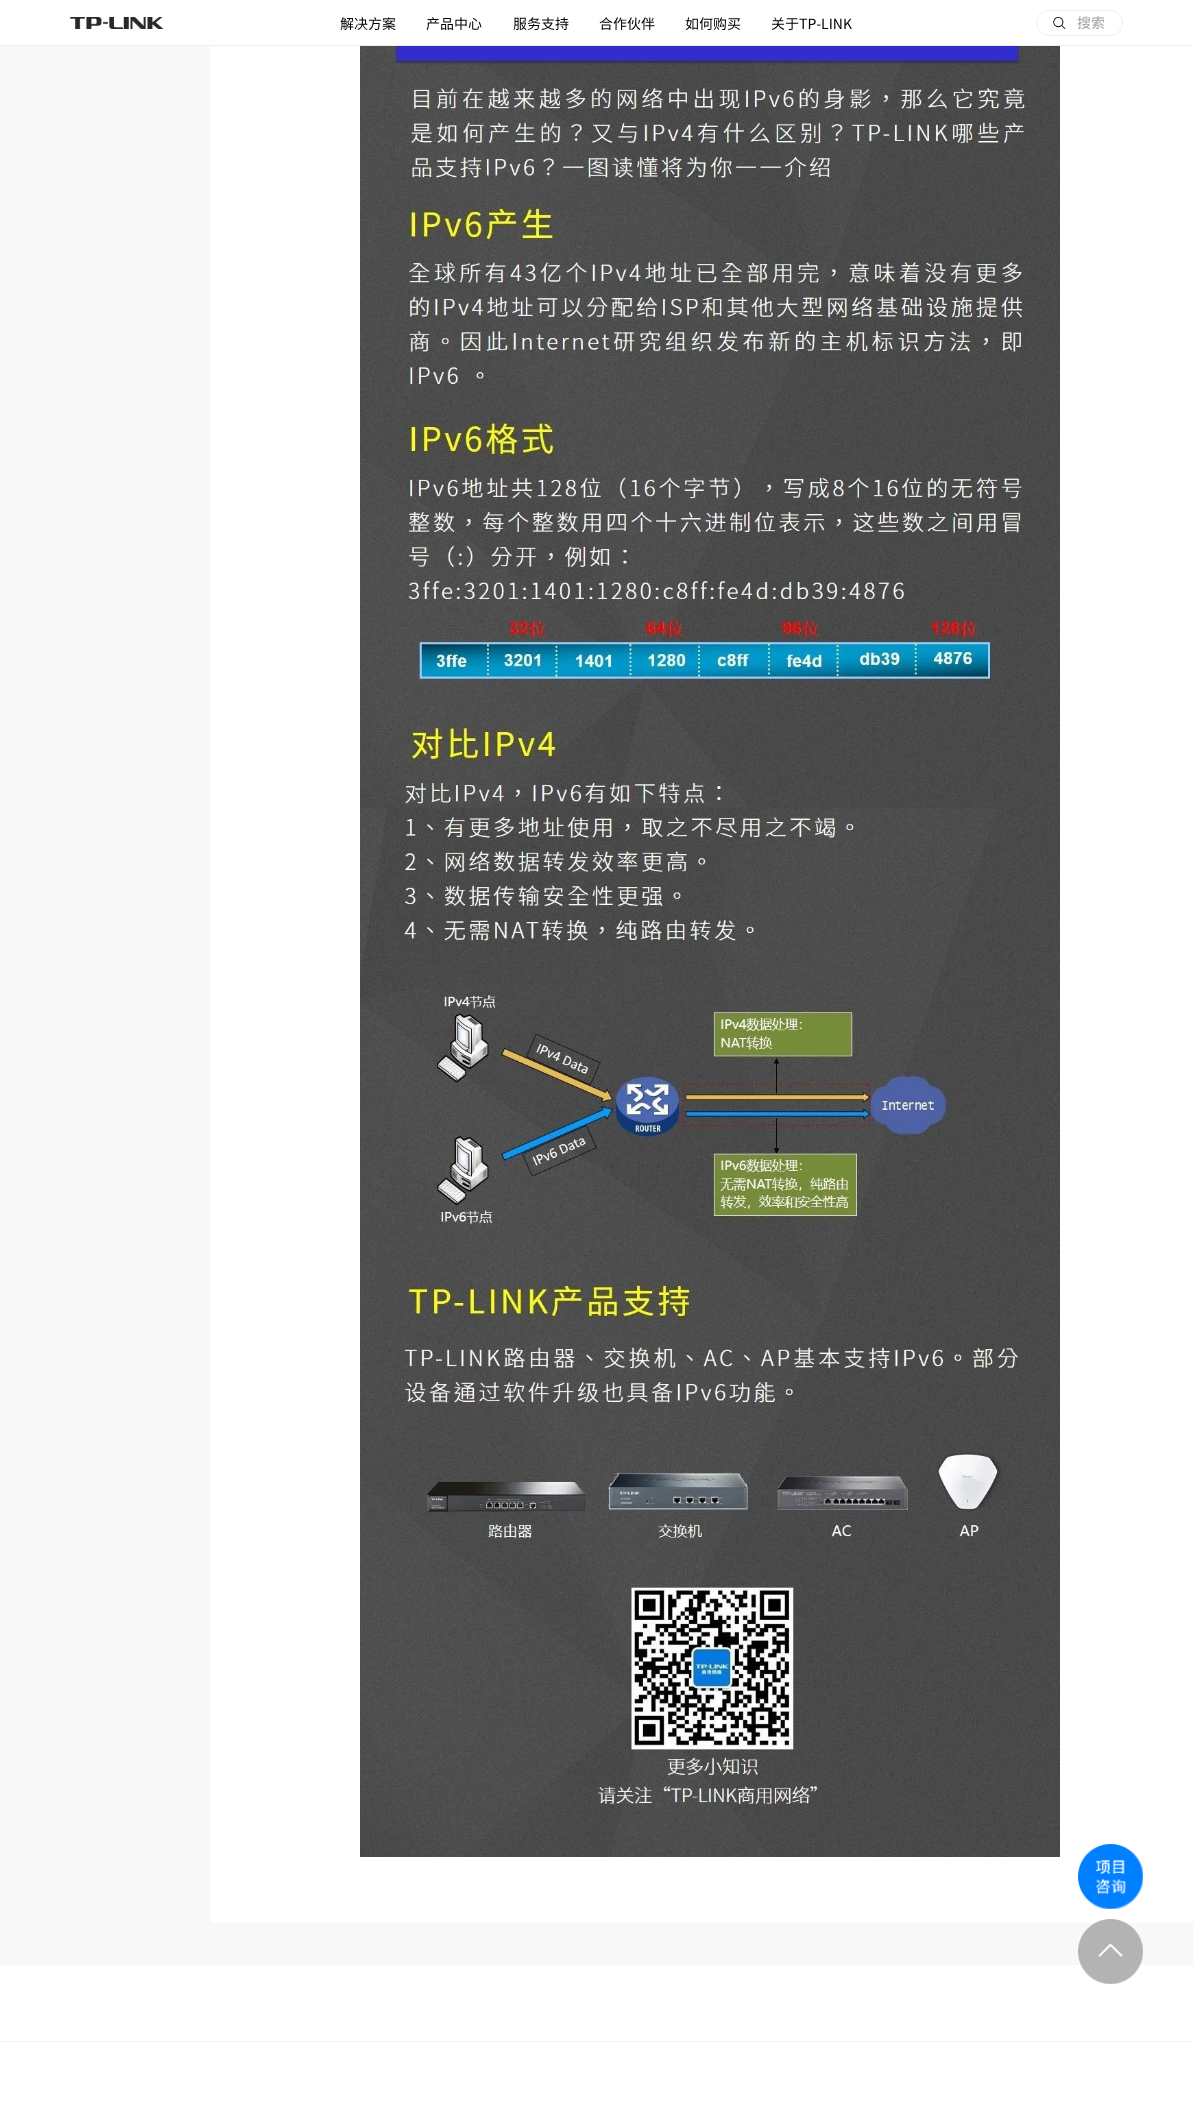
async function draw(canvas) {
  canvas.width = 1193;
  canvas.height = 2109;
  const ctx = canvas.getContext('2d');
  ctx.miterLimit = 4;
  ctx.fontKerning = 'normal';
  function label(s, x, y, font, color) {
    ctx.font = font;
    ctx.fillStyle = color;
    ctx.fillText(s, x, y);
  }
  function rect(x, y, w, h, color) {
    ctx.fillStyle = color;
    ctx.fillRect(x, y, w, h);
  }
  async function image(src, x, y, w, h) {
    const img = new Image();
    img.src = src;
    await img.decode();
    ctx.drawImage(img, x, y, w, h);
  }

  rect(0, 0, 1193, 2109, '#fff');
  await image('assets/img1.png', 70, 17, 94, 12);
  label('解决方案', 340, 29, '14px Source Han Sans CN', '#000');
  rect(0, 45, 1193, 1, '#eee');
  label('产品中心', 426, 29, '14px Source Han Sans CN', '#000');
  label('服务支持', 513, 29, '14px Source Han Sans CN', '#000');
  label('合作伙伴', 599, 29, '14px Source Han Sans CN', '#000');
  label('如何购买', 685, 29, '14px Source Han Sans CN', '#000');
  label('关于TP-LINK', 771, 29, '14px Source Han Sans CN', '#000');
  ctx.beginPath();
  ctx.roundRect(1036.5, 10.5, 86, 25, 12.5);
  ctx.strokeStyle = '#eee';
  ctx.stroke();
  await image('assets/img2.png', 1053, 17, 13, 12);
  label('搜索', 1077, 28, '14px Source Han Sans CN', '#a2a2a2');
  rect(0, 46, 1193, 1919, '#f8f8f8');
  rect(210, 46, 983, 1877, '#fff');
  await image('assets/img3.png', 360, 46, 700, 1811);
  await image('assets/img4.png', 1078, 1844, 65, 65);
  await image('assets/img5.png', 1078, 1919, 65, 65);
  rect(0, 2041, 1193, 1, '#f1f1f1');
}

draw(document.querySelector('canvas'));
